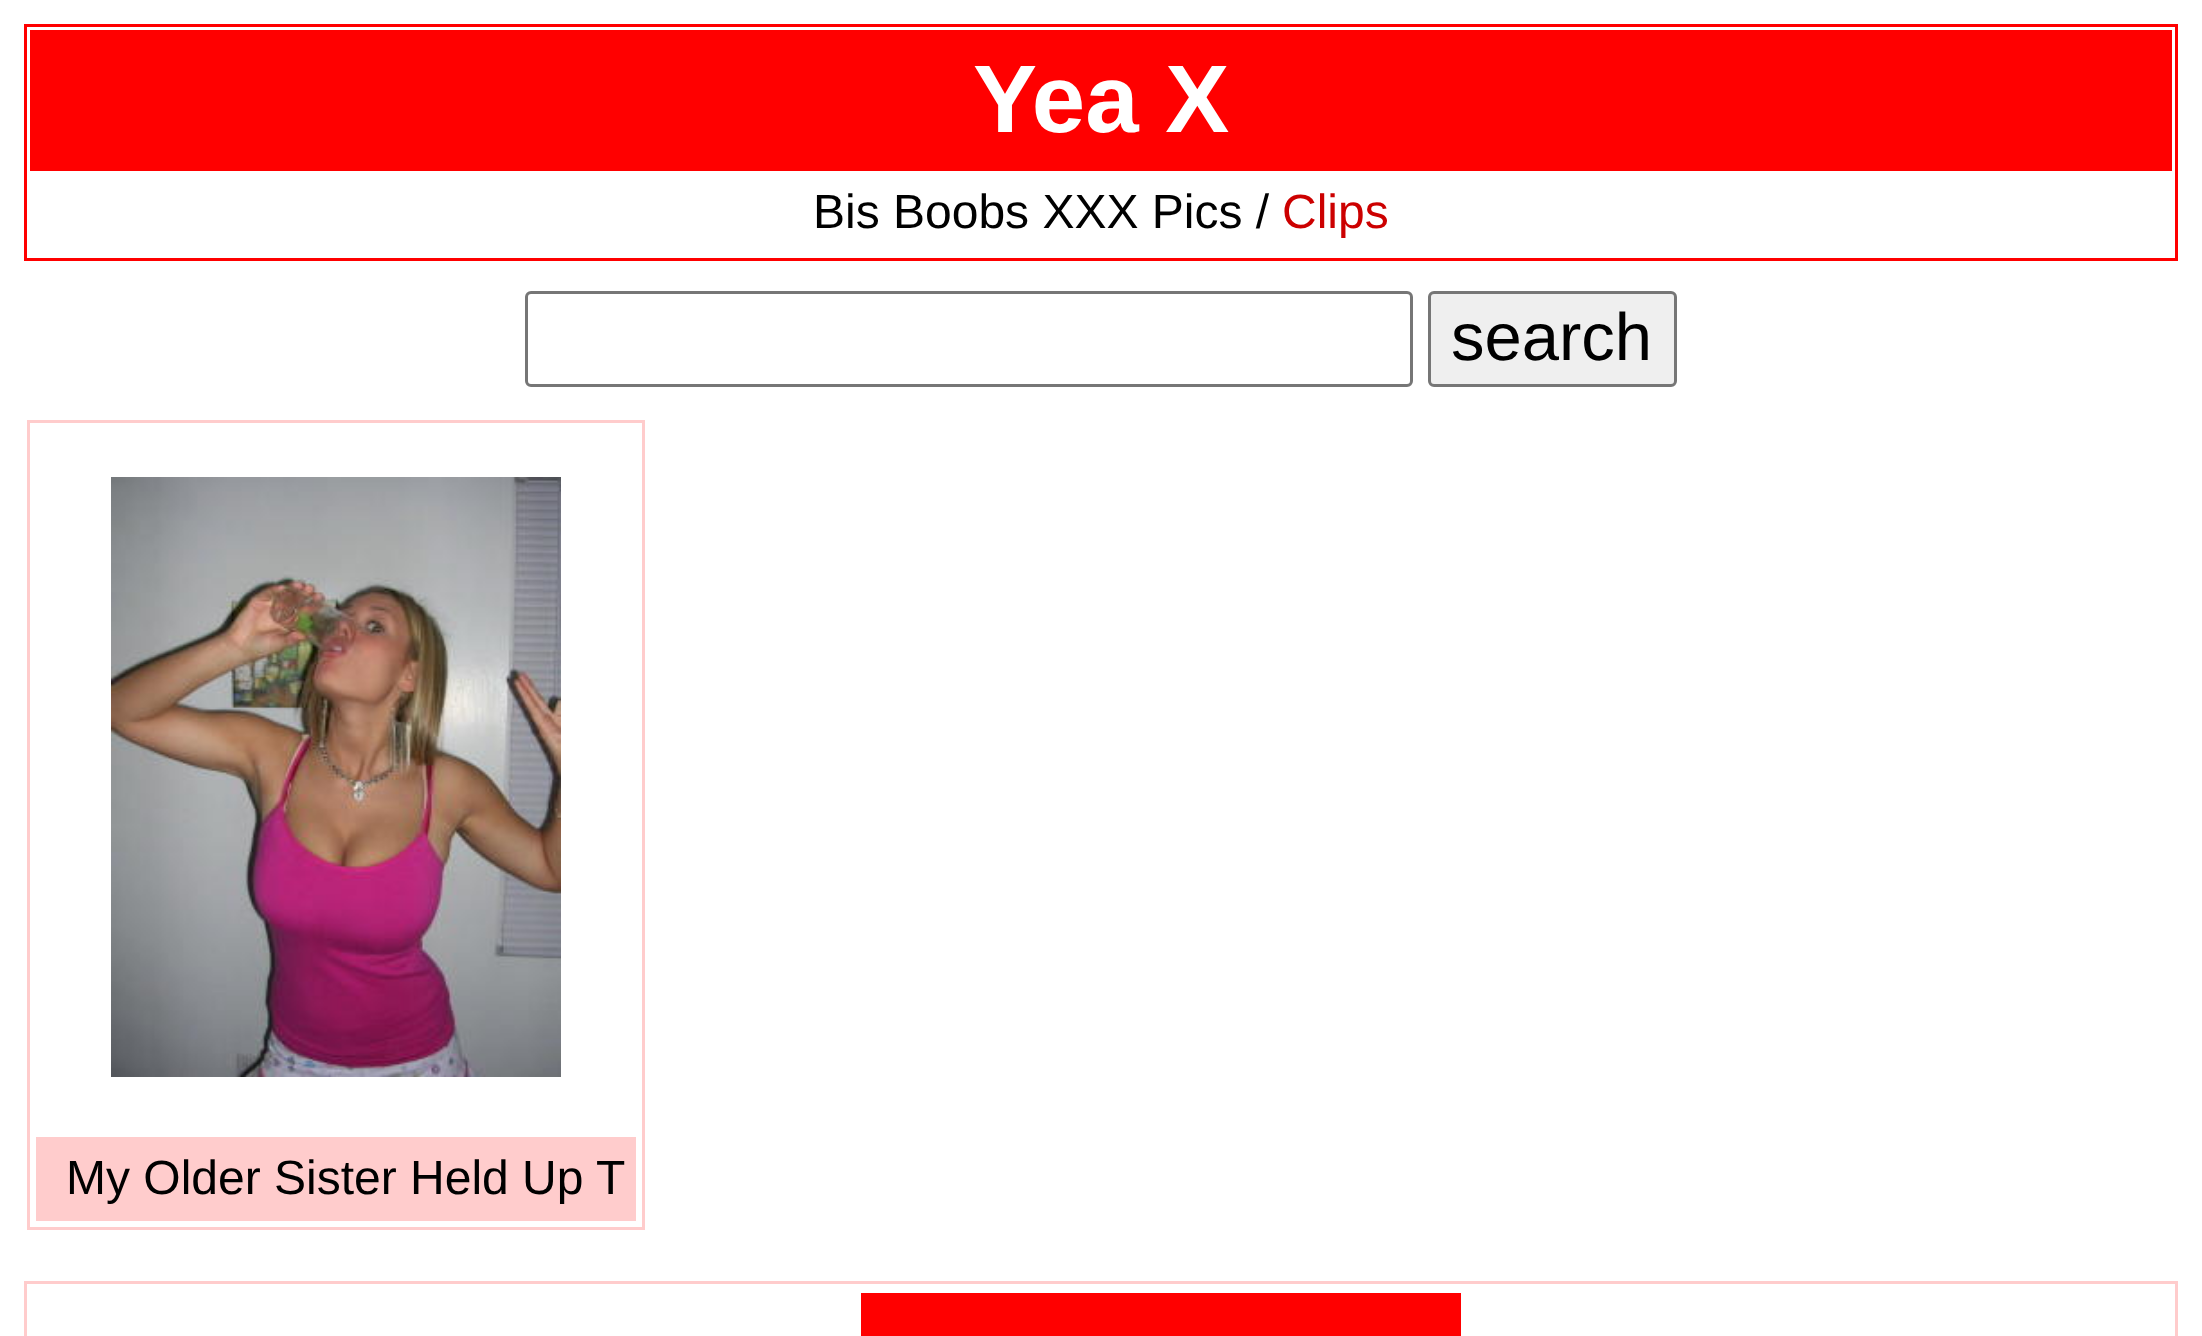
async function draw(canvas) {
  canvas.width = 2202;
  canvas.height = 1336;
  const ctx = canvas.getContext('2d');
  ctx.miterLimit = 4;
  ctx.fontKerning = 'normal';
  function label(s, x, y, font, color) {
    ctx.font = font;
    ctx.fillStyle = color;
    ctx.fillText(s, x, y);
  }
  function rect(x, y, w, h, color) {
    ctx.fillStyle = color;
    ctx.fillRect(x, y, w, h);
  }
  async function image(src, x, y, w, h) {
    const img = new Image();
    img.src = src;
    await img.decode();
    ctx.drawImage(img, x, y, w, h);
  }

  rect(0, 0, 2202, 1336, '#fff');
  ctx.strokeStyle = '#f00';
  ctx.lineWidth = 3;
  ctx.strokeRect(25.5, 25.5, 2151, 234);
  rect(30, 30, 2142, 141, '#f00');
  label('Yea X', 973, 132, 'bold 96px Liberation Sans', '#fff');
  label('Bis Boobs XXX Pics /', 813, 228, '48px Liberation Sans', '#000');
  label('Clips', 1282, 228, '48px Liberation Sans', '#c00');
  ctx.beginPath();
  ctx.roundRect(526.5, 292.5, 885, 93, 4.5);
  ctx.strokeStyle = '#767676';
  ctx.stroke();
  ctx.fillStyle = '#efefef';
  ctx.beginPath();
  ctx.roundRect(1429.5, 292.5, 246, 93, 4.5);
  ctx.fill();
  ctx.stroke();
  label('search', 1451, 360, '67px Liberation Sans', '#000');
  ctx.strokeStyle = '#fcc';
  ctx.strokeRect(28.5, 421.5, 615, 807);
  await image('assets/img1.png', 111, 477, 450, 600);
  rect(36, 1137, 600, 84, '#fcc');
  label('My Older Sister Held Up T', 66, 1194, '48px Liberation Sans', '#000');
  ctx.strokeRect(25.5, 1282.5, 2151, 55);
  rect(861, 1293, 600, 43, '#f00');
}

draw(document.querySelector('canvas'));
